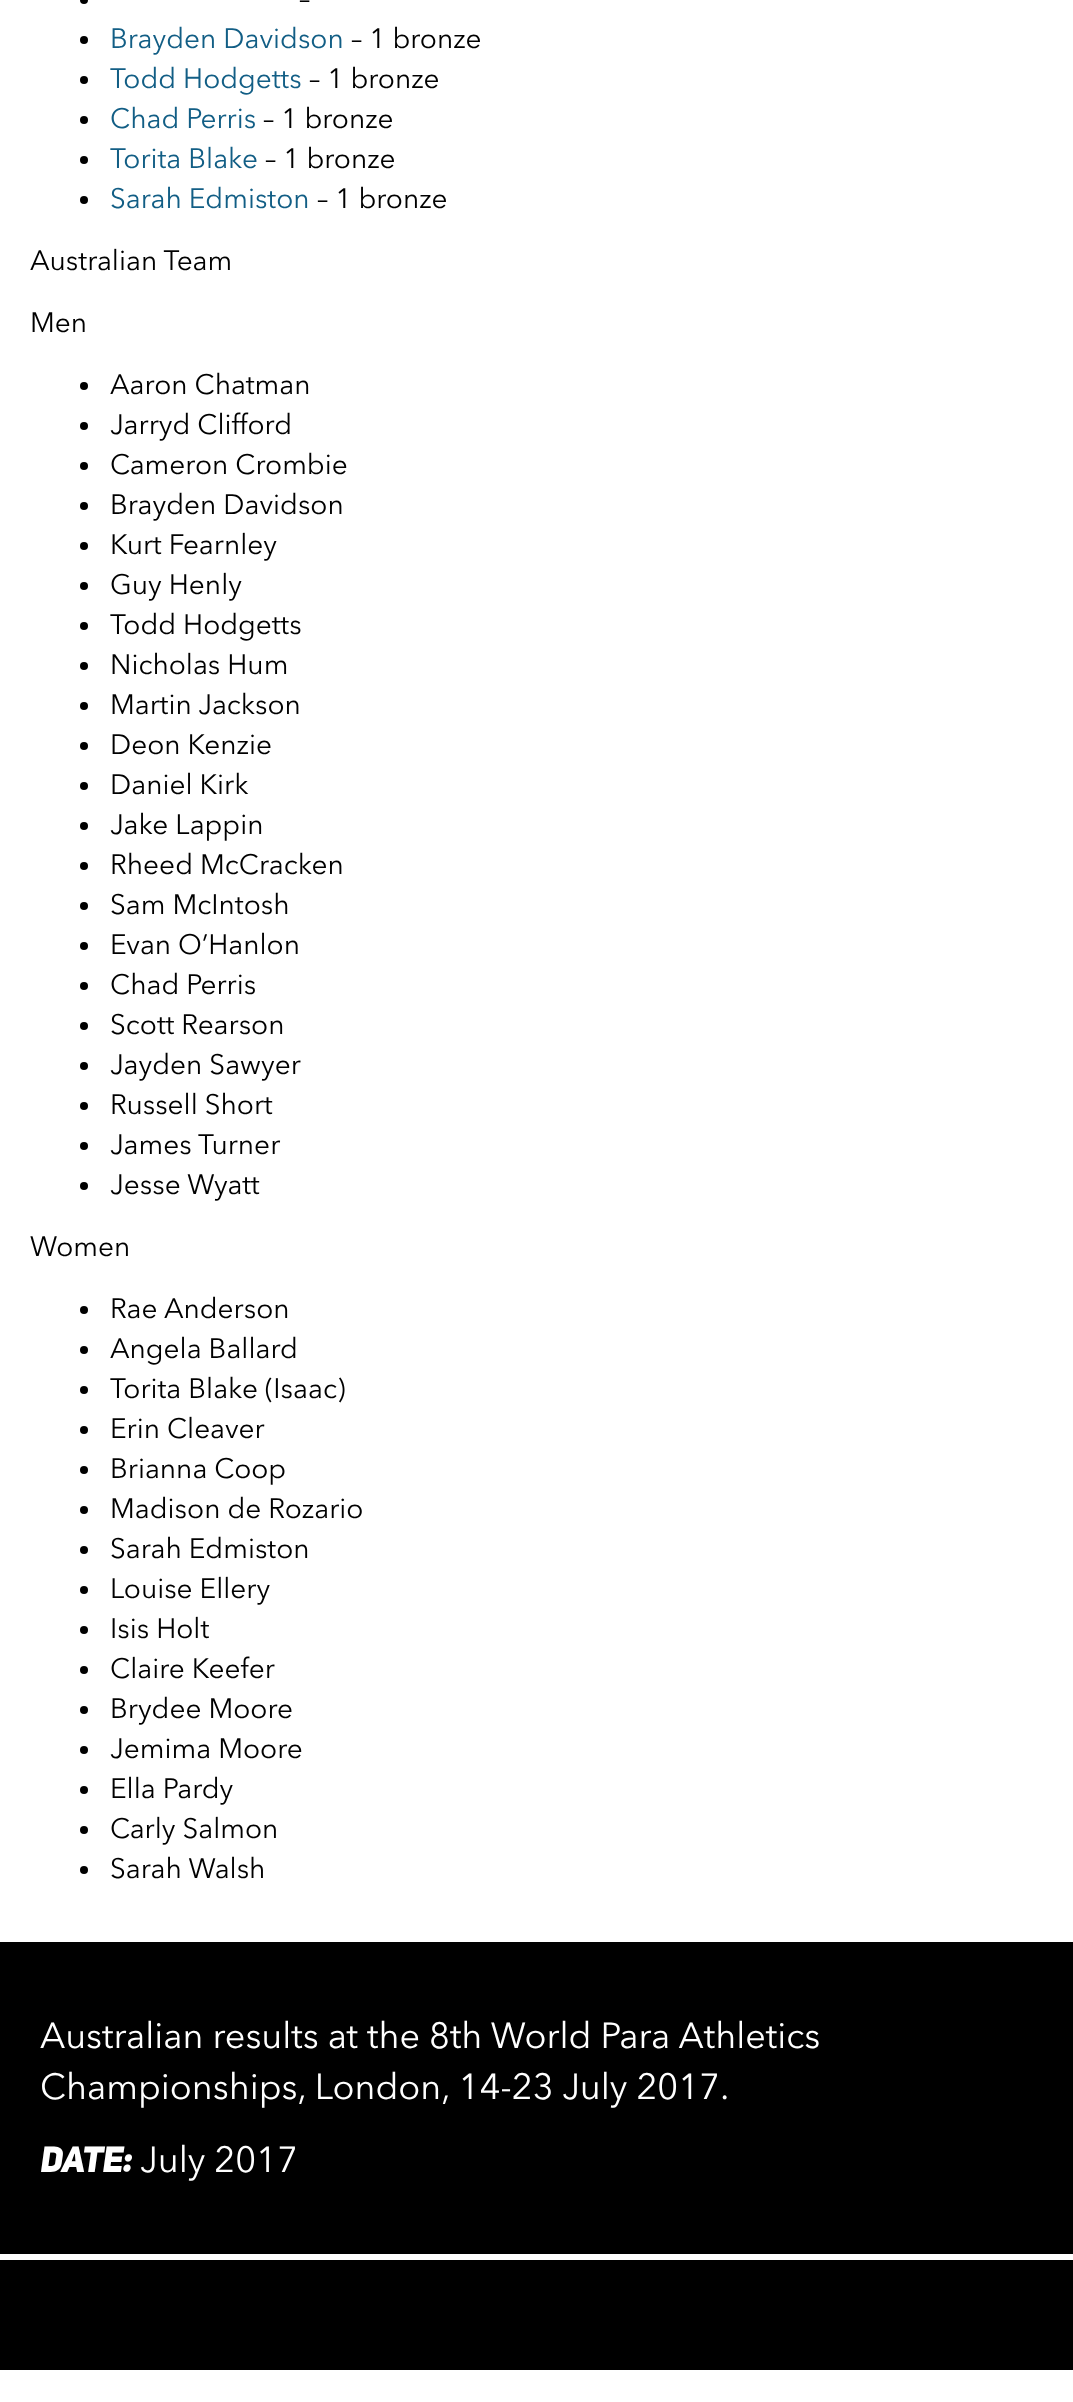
async function draw(canvas) {
  canvas.width = 1073;
  canvas.height = 2402;
  const ctx = canvas.getContext('2d');
  ctx.miterLimit = 4;
  ctx.fontKerning = 'normal';
  function label(s, x, y, font, color) {
    ctx.font = font;
    ctx.fillStyle = color;
    ctx.fillText(s, x, y);
  }
  function rect(x, y, w, h, color) {
    ctx.fillStyle = color;
    ctx.fillRect(x, y, w, h);
  }

  rect(0, 0, 1073, 2402, '#fff');
  ctx.fillStyle = '#000';
  ctx.beginPath();
  ctx.arc(84, 0, 4, 0, 2 * Math.PI);
  ctx.fill();
  label('–', 299, 8, '28px "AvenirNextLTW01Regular"', '#000');
  ctx.beginPath();
  ctx.arc(84, 40, 4, 0, 2 * Math.PI);
  ctx.fill();
  label('Brayden Davidson', 110, 48, '28px "AvenirNextLTW01Regular"', '#125e85');
  label('– 1 bronze', 351, 48, '28px "AvenirNextLTW01Regular"', '#000');
  ctx.beginPath();
  ctx.arc(84, 80, 4, 0, 2 * Math.PI);
  ctx.fill();
  label('Todd Hodgetts', 110, 88, '28px "AvenirNextLTW01Regular"', '#125e85');
  label('– 1 bronze', 309, 88, '28px "AvenirNextLTW01Regular"', '#000');
  ctx.beginPath();
  ctx.arc(84, 120, 4, 0, 2 * Math.PI);
  ctx.fill();
  label('Chad Perris', 110, 128, '28px "AvenirNextLTW01Regular"', '#125e85');
  label('– 1 bronze', 263, 128, '28px "AvenirNextLTW01Regular"', '#000');
  ctx.beginPath();
  ctx.arc(84, 160, 4, 0, 2 * Math.PI);
  ctx.fill();
  label('Torita Blake', 110, 168, '28px "AvenirNextLTW01Regular"', '#125e85');
  label('– 1 bronze', 265, 168, '28px "AvenirNextLTW01Regular"', '#000');
  ctx.beginPath();
  ctx.arc(84, 200, 4, 0, 2 * Math.PI);
  ctx.fill();
  label('Sarah Edmiston', 110, 208, '28px "AvenirNextLTW01Regular"', '#125e85');
  label('– 1 bronze', 317, 208, '28px "AvenirNextLTW01Regular"', '#000');
  label('Australian Team', 30, 270, '28px "AvenirNextLTW01Regular"', '#000');
  label('Men', 30, 332, '28px "AvenirNextLTW01Regular"', '#000');
  ctx.beginPath();
  ctx.arc(84, 386, 4, 0, 2 * Math.PI);
  ctx.fill();
  label('Aaron Chatman', 110, 394, '28px "AvenirNextLTW01Regular"', '#000');
  ctx.beginPath();
  ctx.arc(84, 426, 4, 0, 2 * Math.PI);
  ctx.fill();
  label('Jarryd Clifford', 110, 434, '28px "AvenirNextLTW01Regular"', '#000');
  ctx.beginPath();
  ctx.arc(84, 466, 4, 0, 2 * Math.PI);
  ctx.fill();
  label('Cameron Crombie', 110, 474, '28px "AvenirNextLTW01Regular"', '#000');
  ctx.beginPath();
  ctx.arc(84, 506, 4, 0, 2 * Math.PI);
  ctx.fill();
  label('Brayden Davidson', 110, 514, '28px "AvenirNextLTW01Regular"', '#000');
  ctx.beginPath();
  ctx.arc(84, 546, 4, 0, 2 * Math.PI);
  ctx.fill();
  label('Kurt Fearnley', 110, 554, '28px "AvenirNextLTW01Regular"', '#000');
  ctx.beginPath();
  ctx.arc(84, 586, 4, 0, 2 * Math.PI);
  ctx.fill();
  label('Guy Henly', 110, 594, '28px "AvenirNextLTW01Regular"', '#000');
  ctx.beginPath();
  ctx.arc(84, 626, 4, 0, 2 * Math.PI);
  ctx.fill();
  label('Todd Hodgetts', 110, 634, '28px "AvenirNextLTW01Regular"', '#000');
  ctx.beginPath();
  ctx.arc(84, 666, 4, 0, 2 * Math.PI);
  ctx.fill();
  label('Nicholas Hum', 110, 674, '28px "AvenirNextLTW01Regular"', '#000');
  ctx.beginPath();
  ctx.arc(84, 706, 4, 0, 2 * Math.PI);
  ctx.fill();
  label('Martin Jackson', 110, 714, '28px "AvenirNextLTW01Regular"', '#000');
  ctx.beginPath();
  ctx.arc(84, 746, 4, 0, 2 * Math.PI);
  ctx.fill();
  label('Deon Kenzie', 110, 754, '28px "AvenirNextLTW01Regular"', '#000');
  ctx.beginPath();
  ctx.arc(84, 786, 4, 0, 2 * Math.PI);
  ctx.fill();
  label('Daniel Kirk', 110, 794, '28px "AvenirNextLTW01Regular"', '#000');
  ctx.beginPath();
  ctx.arc(84, 826, 4, 0, 2 * Math.PI);
  ctx.fill();
  label('Jake Lappin', 110, 834, '28px "AvenirNextLTW01Regular"', '#000');
  ctx.beginPath();
  ctx.arc(84, 866, 4, 0, 2 * Math.PI);
  ctx.fill();
  label('Rheed McCracken', 110, 874, '28px "AvenirNextLTW01Regular"', '#000');
  ctx.beginPath();
  ctx.arc(84, 906, 4, 0, 2 * Math.PI);
  ctx.fill();
  label('Sam McIntosh', 110, 914, '28px "AvenirNextLTW01Regular"', '#000');
  ctx.beginPath();
  ctx.arc(84, 946, 4, 0, 2 * Math.PI);
  ctx.fill();
  label('Evan O’Hanlon', 110, 954, '28px "AvenirNextLTW01Regular"', '#000');
  ctx.beginPath();
  ctx.arc(84, 986, 4, 0, 2 * Math.PI);
  ctx.fill();
  label('Chad Perris', 110, 994, '28px "AvenirNextLTW01Regular"', '#000');
  ctx.beginPath();
  ctx.arc(84, 1026, 4, 0, 2 * Math.PI);
  ctx.fill();
  label('Scott Rearson', 110, 1034, '28px "AvenirNextLTW01Regular"', '#000');
  ctx.beginPath();
  ctx.arc(84, 1066, 4, 0, 2 * Math.PI);
  ctx.fill();
  label('Jayden Sawyer', 110, 1074, '28px "AvenirNextLTW01Regular"', '#000');
  ctx.beginPath();
  ctx.arc(84, 1106, 4, 0, 2 * Math.PI);
  ctx.fill();
  label('Russell Short', 110, 1114, '28px "AvenirNextLTW01Regular"', '#000');
  ctx.beginPath();
  ctx.arc(84, 1146, 4, 0, 2 * Math.PI);
  ctx.fill();
  label('James Turner', 110, 1154, '28px "AvenirNextLTW01Regular"', '#000');
  ctx.beginPath();
  ctx.arc(84, 1186, 4, 0, 2 * Math.PI);
  ctx.fill();
  label('Jesse Wyatt', 110, 1194, '28px "AvenirNextLTW01Regular"', '#000');
  label('Women', 30, 1256, '28px "AvenirNextLTW01Regular"', '#000');
  ctx.beginPath();
  ctx.arc(84, 1310, 4, 0, 2 * Math.PI);
  ctx.fill();
  label('Rae Anderson', 110, 1318, '28px "AvenirNextLTW01Regular"', '#000');
  ctx.beginPath();
  ctx.arc(84, 1350, 4, 0, 2 * Math.PI);
  ctx.fill();
  label('Angela Ballard', 110, 1358, '28px "AvenirNextLTW01Regular"', '#000');
  ctx.beginPath();
  ctx.arc(84, 1390, 4, 0, 2 * Math.PI);
  ctx.fill();
  label('Torita Blake (Isaac)', 110, 1398, '28px "AvenirNextLTW01Regular"', '#000');
  ctx.beginPath();
  ctx.arc(84, 1430, 4, 0, 2 * Math.PI);
  ctx.fill();
  label('Erin Cleaver', 110, 1438, '28px "AvenirNextLTW01Regular"', '#000');
  ctx.beginPath();
  ctx.arc(84, 1470, 4, 0, 2 * Math.PI);
  ctx.fill();
  label('Brianna Coop', 110, 1478, '28px "AvenirNextLTW01Regular"', '#000');
  ctx.beginPath();
  ctx.arc(84, 1510, 4, 0, 2 * Math.PI);
  ctx.fill();
  label('Madison de Rozario', 110, 1518, '28px "AvenirNextLTW01Regular"', '#000');
  ctx.beginPath();
  ctx.arc(84, 1550, 4, 0, 2 * Math.PI);
  ctx.fill();
  label('Sarah Edmiston', 110, 1558, '28px "AvenirNextLTW01Regular"', '#000');
  ctx.beginPath();
  ctx.arc(84, 1590, 4, 0, 2 * Math.PI);
  ctx.fill();
  label('Louise Ellery', 110, 1598, '28px "AvenirNextLTW01Regular"', '#000');
  ctx.beginPath();
  ctx.arc(84, 1630, 4, 0, 2 * Math.PI);
  ctx.fill();
  label('Isis Holt', 110, 1638, '28px "AvenirNextLTW01Regular"', '#000');
  ctx.beginPath();
  ctx.arc(84, 1670, 4, 0, 2 * Math.PI);
  ctx.fill();
  label('Claire Keefer', 110, 1678, '28px "AvenirNextLTW01Regular"', '#000');
  ctx.beginPath();
  ctx.arc(84, 1710, 4, 0, 2 * Math.PI);
  ctx.fill();
  label('Brydee Moore', 110, 1718, '28px "AvenirNextLTW01Regular"', '#000');
  ctx.beginPath();
  ctx.arc(84, 1750, 4, 0, 2 * Math.PI);
  ctx.fill();
  label('Jemima Moore', 110, 1758, '28px "AvenirNextLTW01Regular"', '#000');
  ctx.beginPath();
  ctx.arc(84, 1790, 4, 0, 2 * Math.PI);
  ctx.fill();
  label('Ella Pardy', 110, 1798, '28px "AvenirNextLTW01Regular"', '#000');
  ctx.beginPath();
  ctx.arc(84, 1830, 4, 0, 2 * Math.PI);
  ctx.fill();
  label('Carly Salmon', 110, 1838, '28px "AvenirNextLTW01Regular"', '#000');
  ctx.beginPath();
  ctx.arc(84, 1870, 4, 0, 2 * Math.PI);
  ctx.fill();
  label('Sarah Walsh', 110, 1878, '28px "AvenirNextLTW01Regular"', '#000');
  rect(0, 1942, 1073, 428, '#000');
  label('Australian results at the 8th World Para Athletics', 40, 2048, '36px "AvenirNextLTW01Regular"', '#fff');
  label('Championships, London, 14-23 July 2017.', 40, 2099, '36px "AvenirNextLTW01Regular"', '#fff');
  label('DATE:', 40, 2172, '900 36px "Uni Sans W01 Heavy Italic"', '#fff');
  label('July 2017', 140, 2172, '36px "AvenirNextLTW01Regular"', '#fff');
  rect(0, 2254, 1073, 6, '#fff');
}

draw(document.querySelector('canvas'));
